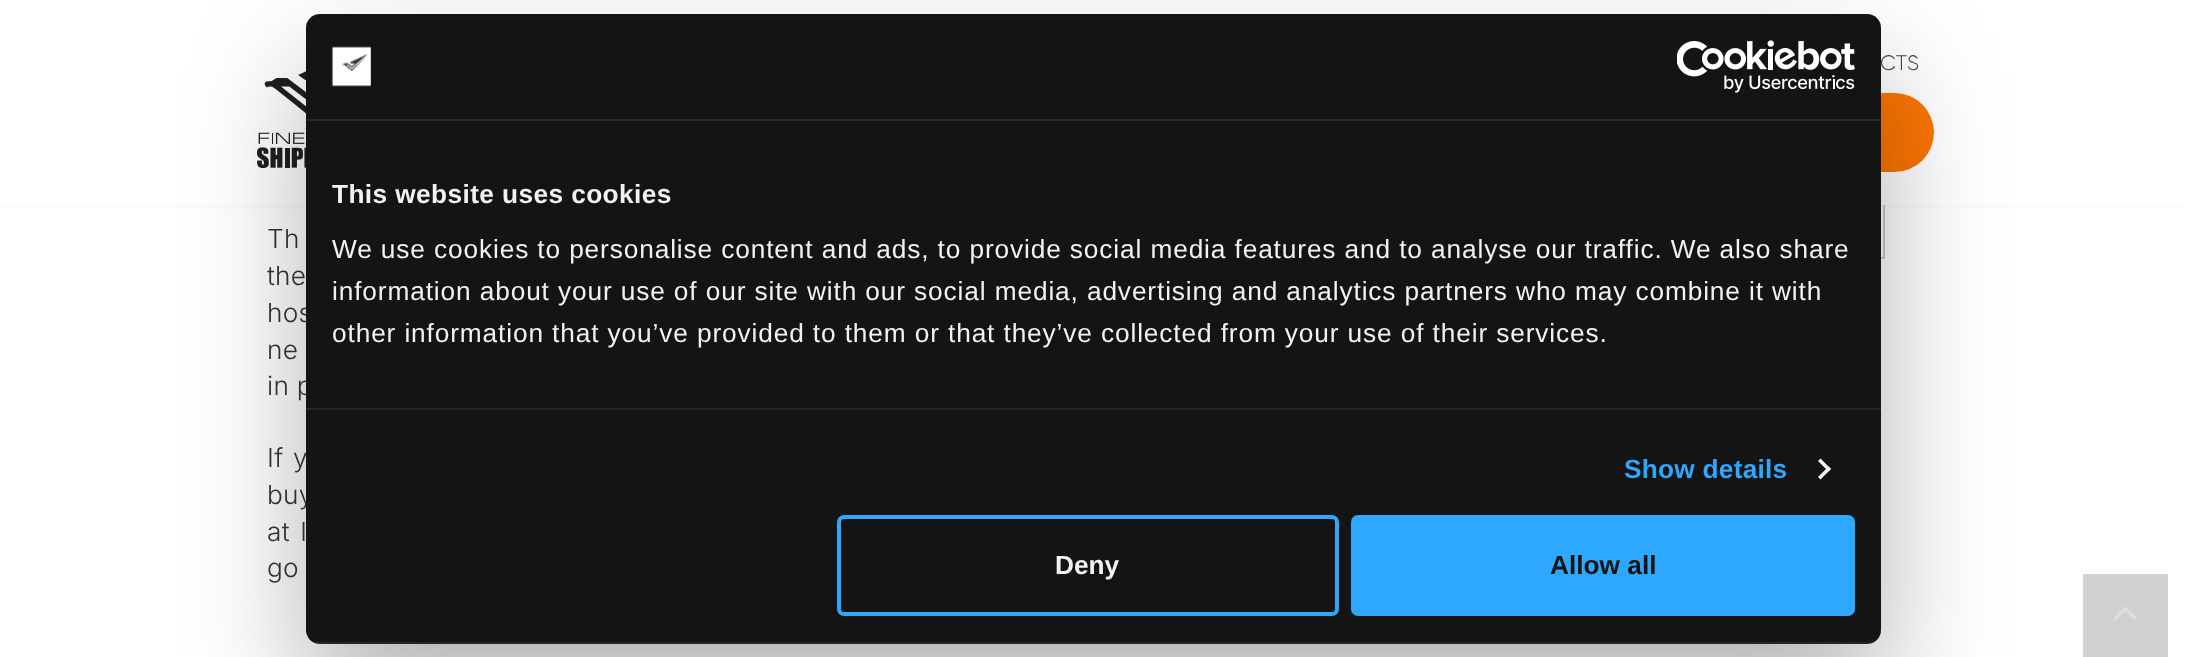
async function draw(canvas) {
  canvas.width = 2185;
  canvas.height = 657;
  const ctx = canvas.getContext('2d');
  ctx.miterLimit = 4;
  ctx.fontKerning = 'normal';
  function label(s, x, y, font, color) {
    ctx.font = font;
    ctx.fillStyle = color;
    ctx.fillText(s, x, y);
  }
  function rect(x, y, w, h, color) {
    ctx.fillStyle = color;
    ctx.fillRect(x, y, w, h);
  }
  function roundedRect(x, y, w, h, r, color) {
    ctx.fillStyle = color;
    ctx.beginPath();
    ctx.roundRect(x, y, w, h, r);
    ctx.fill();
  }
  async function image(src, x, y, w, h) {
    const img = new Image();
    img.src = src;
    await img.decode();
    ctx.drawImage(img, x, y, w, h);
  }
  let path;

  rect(0, 0, 2185, 657, '#fff');
  ctx.strokeStyle = '#ccc';
  ctx.lineWidth = 2;
  ctx.strokeRect(1564, -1, 320, 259);
  ctx.fillStyle = '#0000000f';
  ctx.filter = 'blur(2.5px)';
  ctx.beginPath();
  ctx.rect(0, 0, 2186, 205);
  ctx.fill();
  ctx.filter = 'none';
  rect(0, 0, 2185, 205, '#fff');
  ctx.letterSpacing = '0.25px';
  label('CTS', 1880, 70, '300 21px Gilroy', '#464646');
  roundedRect(1587, 93, 347, 79, 39.5, '#fc7603');
  await image('assets/img1.png', 257, 71, 49, 98);
  ctx.wordSpacing = '2px';
  label('Th', 267, 248, '300 26.25px Inter', '#363636');
  ctx.wordSpacing = '1px';
  label('the', 267, 285, '300 26.25px Inter', '#363636');
  ctx.wordSpacing = '3px';
  label('hos', 267, 322, '300 26.25px Inter', '#363636');
  ctx.wordSpacing = '2px';
  label('ne', 267, 359, '300 26.25px Inter', '#363636');
  ctx.wordSpacing = '0px';
  label('in p', 267, 395, '300 26.25px Inter', '#363636');
  ctx.wordSpacing = '2px';
  label('If y', 267, 467, '300 26.25px Inter', '#363636');
  ctx.wordSpacing = '1px';
  label('buy', 267, 504, '300 26.25px Inter', '#363636');
  ctx.wordSpacing = '3px';
  label('at l', 267, 541, '300 26.25px Inter', '#363636');
  ctx.wordSpacing = '0px';
  label('go', 267, 577, '300 26.25px Inter', '#363636');
  ctx.fillStyle = '#0000004d';
  ctx.filter = 'blur(59.5px)';
  ctx.beginPath();
  ctx.roundRect(306, 70, 1575, 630, 14);
  ctx.fill();
  ctx.filter = 'none';
  roundedRect(306, 14, 1575, 630, 14, '#141414');
  rect(306, 119, 1575, 2, '#272727');
  await image('assets/img2.png', 331, 46, 40, 41);
  await image('assets/img3.png', 1677, 40, 178, 53);
  rect(306, 408, 1575, 2, '#272727');
  ctx.letterSpacing = '0.4px';
  label('This website uses cookies', 332, 203, 'bold 26.25px Liberation Sans', '#f2f2f2');
  ctx.letterSpacing = '0.88px';
  label('We use cookies to personalise content and ads, to provide social media features and to analyse our traffic. We also share', 332, 258, '26.25px Liberation Sans', '#f2f2f2');
  label('information about your use of our site with our social media, advertising and analytics partners who may combine it with', 332, 300, '26.25px Liberation Sans', '#f2f2f2');
  label('other information that you’ve provided to them or that they’ve collected from your use of their services.', 332, 342, '26.25px Liberation Sans', '#f2f2f2');
  ctx.letterSpacing = '0.25px';
  label('Show details', 1624, 478, 'bold 26.25px Liberation Sans', '#2ea7ff');
  ctx.fillStyle = '#f2f2f2';
  path = new Path2D('M1820.5 458.5L1831 469L1828.5 471.5L1818 461Z');
  ctx.fill(path);
  path = new Path2D('M1828.5 466.5L1831 469L1820.5 479.5L1818 477Z');
  ctx.fill(path);
  ctx.save();
  ctx.beginPath();
  ctx.roundRect(306, 14, 1575, 630, 14);
  ctx.clip();
  rect(306, 642, 1575, 2, '#ffffff14');
  ctx.restore();
  ctx.beginPath();
  ctx.roundRect(839, 517, 498, 97, 5);
  ctx.strokeStyle = '#2ea7ff';
  ctx.lineWidth = 4;
  ctx.stroke();
  ctx.letterSpacing = '0px';
  label('Deny', 1055, 574, 'bold 26.25px Liberation Sans', '#f2f2f2');
  ctx.fillStyle = '#2ea7ff';
  ctx.beginPath();
  ctx.roundRect(1353, 517, 500, 97, 5);
  ctx.fill();
  ctx.stroke();
  label('Allow all', 1550, 574, 'bold 26.25px Liberation Sans', '#141414');
  rect(2083, 574, 85, 83, '#d1d1d1');
  await image('assets/img4.png', 2114, 607, 23, 13);
}

draw(document.querySelector('canvas'));
